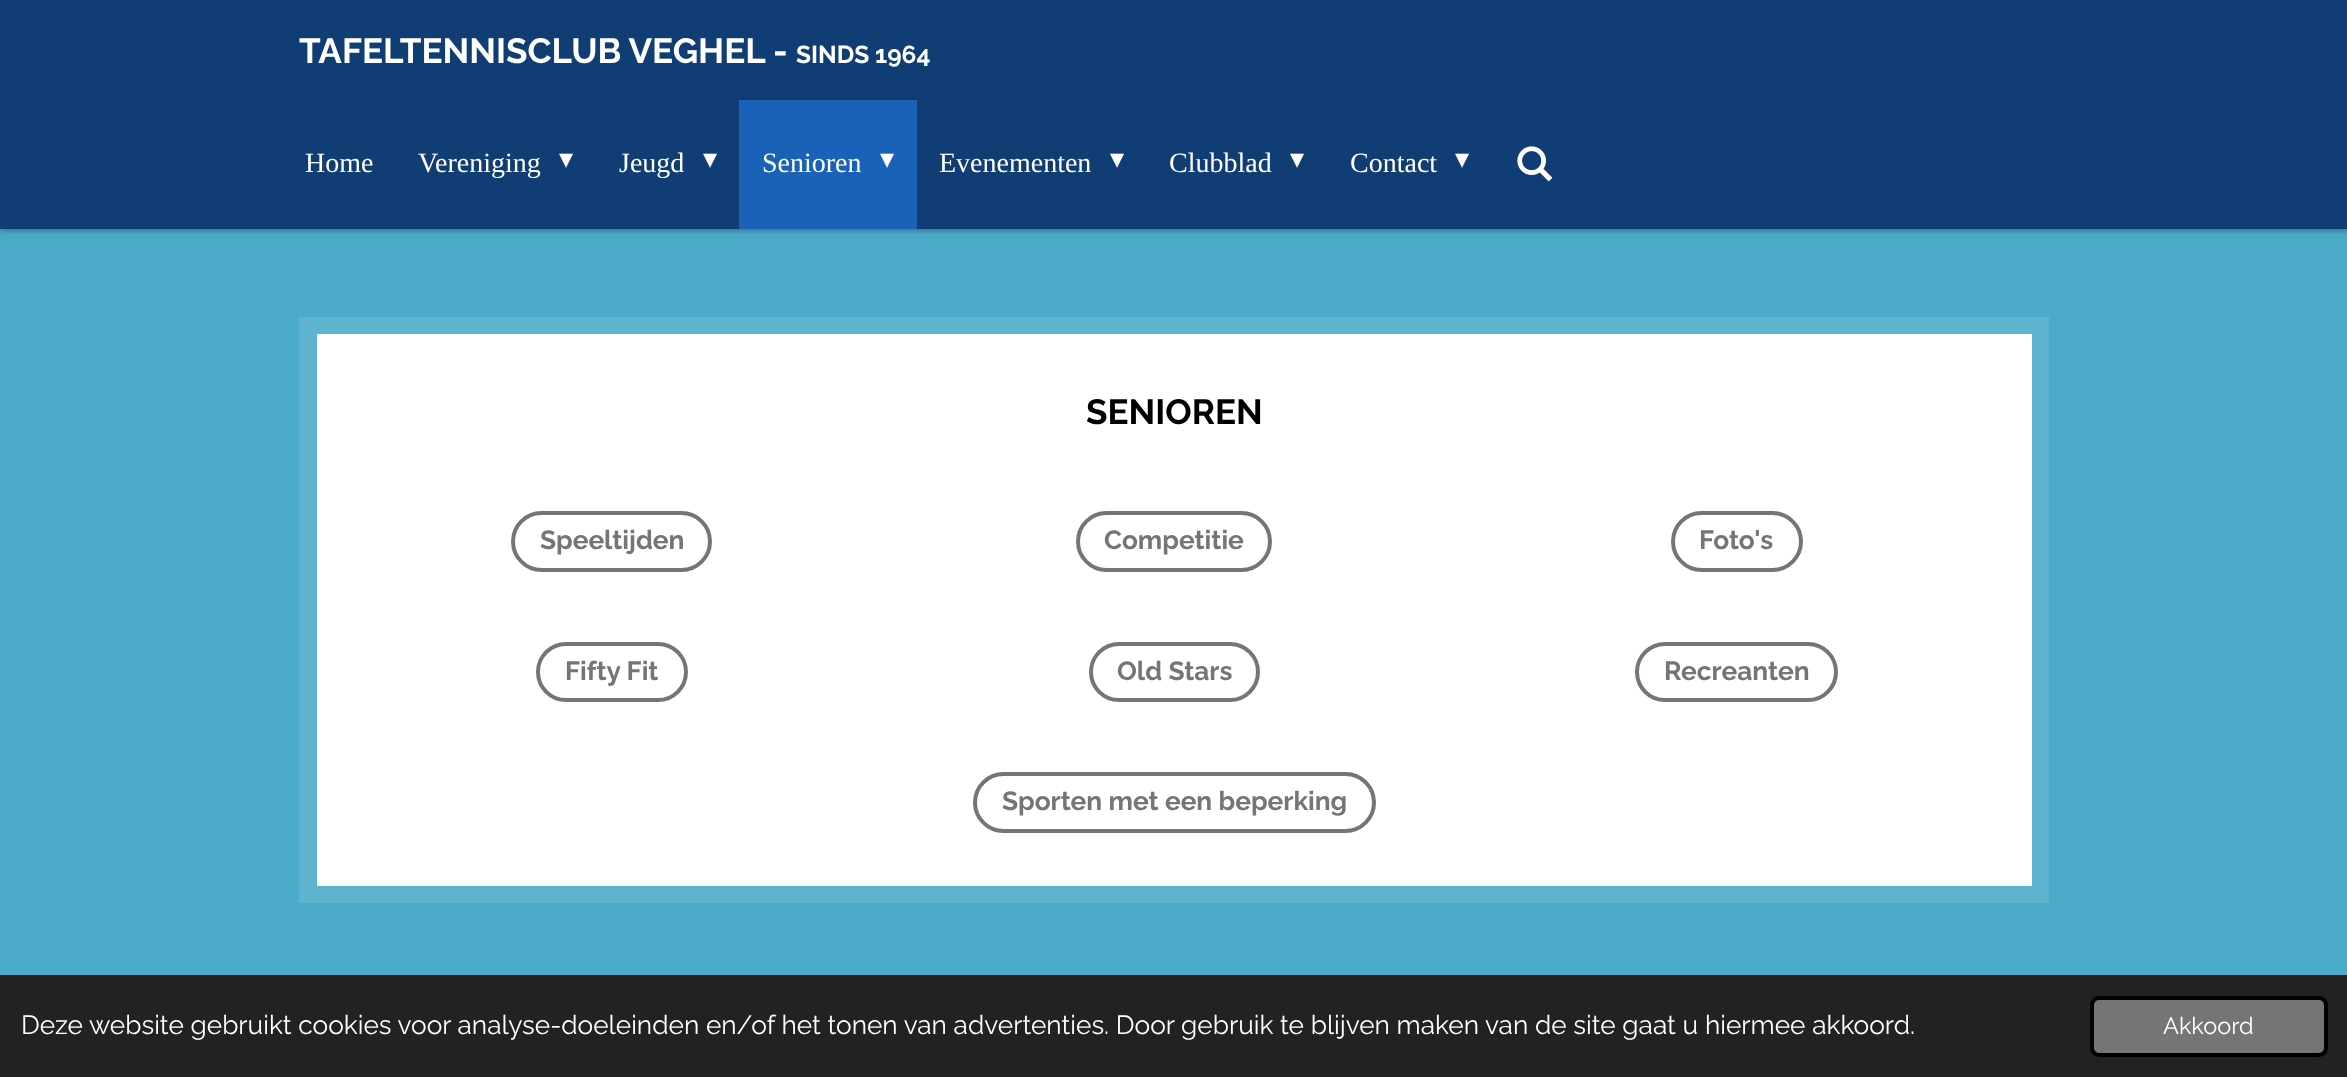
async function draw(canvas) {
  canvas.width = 2347;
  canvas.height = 1077;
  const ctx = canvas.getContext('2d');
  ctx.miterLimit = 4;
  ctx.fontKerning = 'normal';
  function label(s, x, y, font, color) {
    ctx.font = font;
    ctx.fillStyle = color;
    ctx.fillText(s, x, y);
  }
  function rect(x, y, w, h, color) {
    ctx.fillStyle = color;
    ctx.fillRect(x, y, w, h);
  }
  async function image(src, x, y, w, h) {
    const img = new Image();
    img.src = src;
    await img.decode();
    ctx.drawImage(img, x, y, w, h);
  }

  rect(0, 0, 2347, 1077, '#4caac9');
  ctx.fillStyle = '#0000004d';
  ctx.filter = 'blur(2.5px)';
  ctx.beginPath();
  ctx.rect(0, -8, 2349, 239);
  ctx.fill();
  ctx.filter = 'none';
  rect(0, 0, 2347, 229, '#103e74');
  label('TAFELTENNISCLUB VEGHEL -', 299, 63, 'bold 35px Raleway', '#fff');
  label('SINDS 1964', 796, 63, 'bold 24.5px Raleway', '#fff');
  label('Home', 305, 172, '28px Liberation Serif', '#fff');
  label('Vereniging', 418, 172, '28px Liberation Serif', '#fff');
  label('▾', 559, 168, '28px DejaVu Sans', '#fff');
  label('Jeugd', 619, 172, '28px Liberation Serif', '#fff');
  label('▾', 703, 168, '28px DejaVu Sans', '#fff');
  rect(739, 100, 178, 129, '#1962b7');
  label('Senioren', 762, 172, '28px Liberation Serif', '#fff');
  label('▾', 880, 168, '28px DejaVu Sans', '#fff');
  label('Evenementen', 939, 172, '28px Liberation Serif', '#fff');
  label('▾', 1110, 168, '28px DejaVu Sans', '#fff');
  label('Clubblad', 1169, 172, '28px Liberation Serif', '#fff');
  label('▾', 1290, 168, '28px DejaVu Sans', '#fff');
  label('Contact', 1350, 172, '28px Liberation Serif', '#fff');
  label('▾', 1455, 168, '28px DejaVu Sans', '#fff');
  await image('assets/img1.png', 1517, 146, 36, 36);
  rect(299, 317, 1750, 586, '#5eb3ce');
  rect(317, 334, 1715, 552, '#fff');
  label('SENIOREN', 1086, 424, 'bold 35px Raleway', '#000');
  ctx.beginPath();
  ctx.roundRect(513, 513, 197, 57, 28.5);
  ctx.strokeStyle = '#757575';
  ctx.lineWidth = 4;
  ctx.stroke();
  label('Speeltijden', 540, 549, 'bold 26.25px Raleway', '#757575');
  ctx.beginPath();
  ctx.roundRect(1078, 513, 192, 57, 28.5);
  ctx.stroke();
  label('Competitie', 1104, 549, 'bold 26.25px Raleway', '#757575');
  ctx.beginPath();
  ctx.roundRect(1673, 513, 128, 57, 28.5);
  ctx.stroke();
  label('Foto\'s', 1699, 549, 'bold 26.25px Raleway', '#757575');
  ctx.beginPath();
  ctx.roundRect(538, 644, 148, 56, 28);
  ctx.stroke();
  label('Fifty Fit', 565, 680, 'bold 26.25px Raleway', '#757575');
  ctx.beginPath();
  ctx.roundRect(1091, 644, 167, 56, 28);
  ctx.stroke();
  label('Old Stars', 1117, 680, 'bold 26.25px Raleway', '#757575');
  ctx.beginPath();
  ctx.roundRect(1637, 644, 199, 56, 28);
  ctx.stroke();
  label('Recreanten', 1664, 680, 'bold 26.25px Raleway', '#757575');
  ctx.beginPath();
  ctx.roundRect(975, 774, 399, 57, 28.5);
  ctx.stroke();
  label('Sporten met een beperking', 1002, 810, 'bold 26.25px Raleway', '#757575');
  rect(0, 975, 2347, 102, '#222');
  label('Deze website gebruikt cookies voor analyse-doeleinden en/of het tonen van advertenties. Door gebruik te blijven maken van de site gaat u hiermee akkoord.', 21, 1034, '26.25px Raleway', '#fff');
  ctx.fillStyle = '#757575';
  ctx.beginPath();
  ctx.roundRect(2092, 998, 234, 57, 7);
  ctx.fill();
  ctx.strokeStyle = '#000';
  ctx.stroke();
  label('Akkoord', 2163, 1034, '23.5px Raleway', '#fff');
}

draw(document.querySelector('canvas'));
